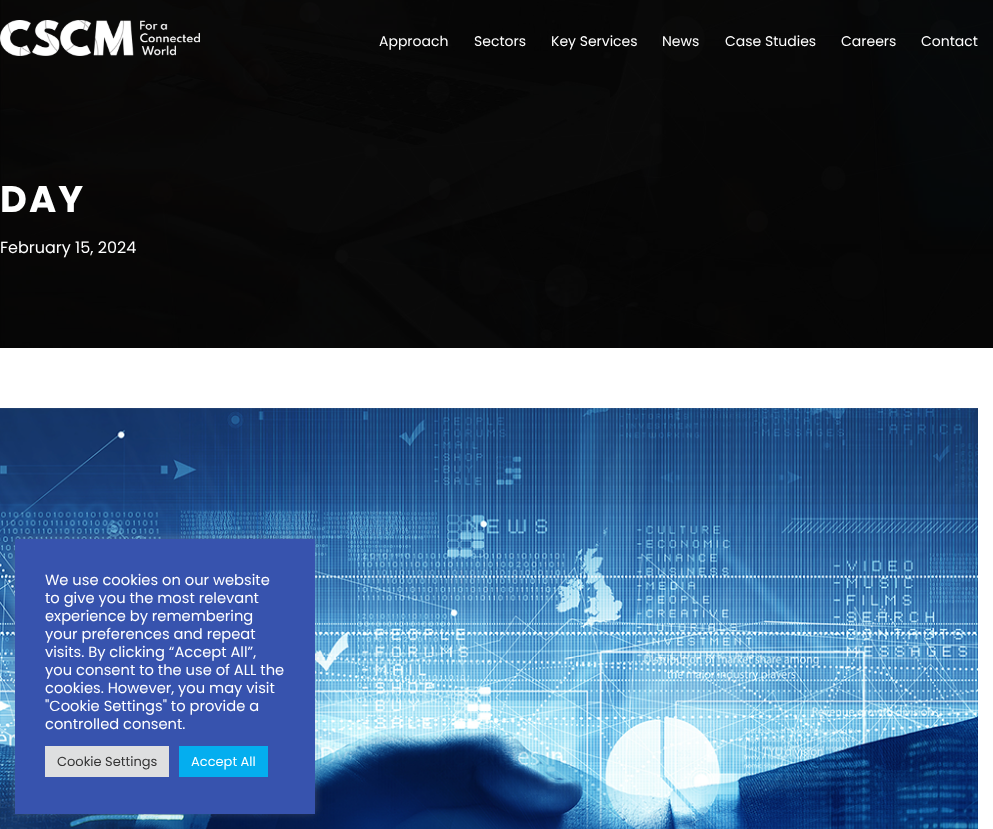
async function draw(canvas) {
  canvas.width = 993;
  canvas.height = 829;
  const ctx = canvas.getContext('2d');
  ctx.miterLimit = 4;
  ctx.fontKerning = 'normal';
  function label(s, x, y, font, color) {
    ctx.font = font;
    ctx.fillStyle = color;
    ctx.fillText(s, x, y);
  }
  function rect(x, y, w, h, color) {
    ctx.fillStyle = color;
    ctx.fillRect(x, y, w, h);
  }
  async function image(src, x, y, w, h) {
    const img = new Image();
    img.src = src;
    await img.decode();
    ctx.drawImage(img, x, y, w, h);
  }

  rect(0, 0, 993, 829, '#fff');
  await image('assets/img2.png', 0, 0, 993, 348);
  await image('assets/img1.png', 0, 20, 200, 36);
  label('Approach', 379, 46, '14px Poppins', '#fff');
  label('Sectors', 474, 46, '14px Poppins', '#fff');
  label('Key Services', 551, 46, '14px Poppins', '#fff');
  label('News', 662, 46, '14px Poppins', '#fff');
  label('Case Studies', 725, 46, '14px Poppins', '#fff');
  label('Careers', 841, 46, '14px Poppins', '#fff');
  label('Contact', 921, 46, '14px Poppins', '#fff');
  ctx.letterSpacing = '2px';
  label('DAY', 0, 212, 'bold 37px Poppins', '#fff');
  ctx.letterSpacing = '0px';
  label('February 15, 2024', 0, 253, '16px Poppins', '#fff');
  await image('assets/img3.png', 0, 408, 978, 421);
  ctx.fillStyle = '#acabab4d';
  ctx.filter = 'blur(5px)';
  ctx.beginPath();
  ctx.rect(15, 538, 300, 275);
  ctx.fill();
  ctx.filter = 'none';
  rect(15, 539, 300, 275, '#3753ae');
  label('We use cookies on our website', 45, 585, '14.7px Poppins', '#fff');
  label('to give you the most relevant', 45, 603, '14.7px Poppins', '#fff');
  label('experience by remembering', 45, 621, '14.7px Poppins', '#fff');
  label('your preferences and repeat', 45, 639, '14.7px Poppins', '#fff');
  label('visits. By clicking “Accept All”,', 45, 657, '14.7px Poppins', '#fff');
  label('you consent to the use of ALL the', 45, 675, '14.7px Poppins', '#fff');
  label('cookies. However, you may visit', 45, 693, '14.7px Poppins', '#fff');
  label('"Cookie Settings" to provide a', 45, 711, '14.7px Poppins', '#fff');
  label('controlled consent.', 45, 729, '14.7px Poppins', '#fff');
  rect(45, 746, 124, 31, '#dedfe0');
  label('Cookie Settings', 57, 766, '13px Poppins', '#333');
  rect(179, 746, 89, 31, '#04aeef');
  label('Accept All', 191, 766, '13px Poppins', '#fff');
}

draw(document.querySelector('canvas'));
